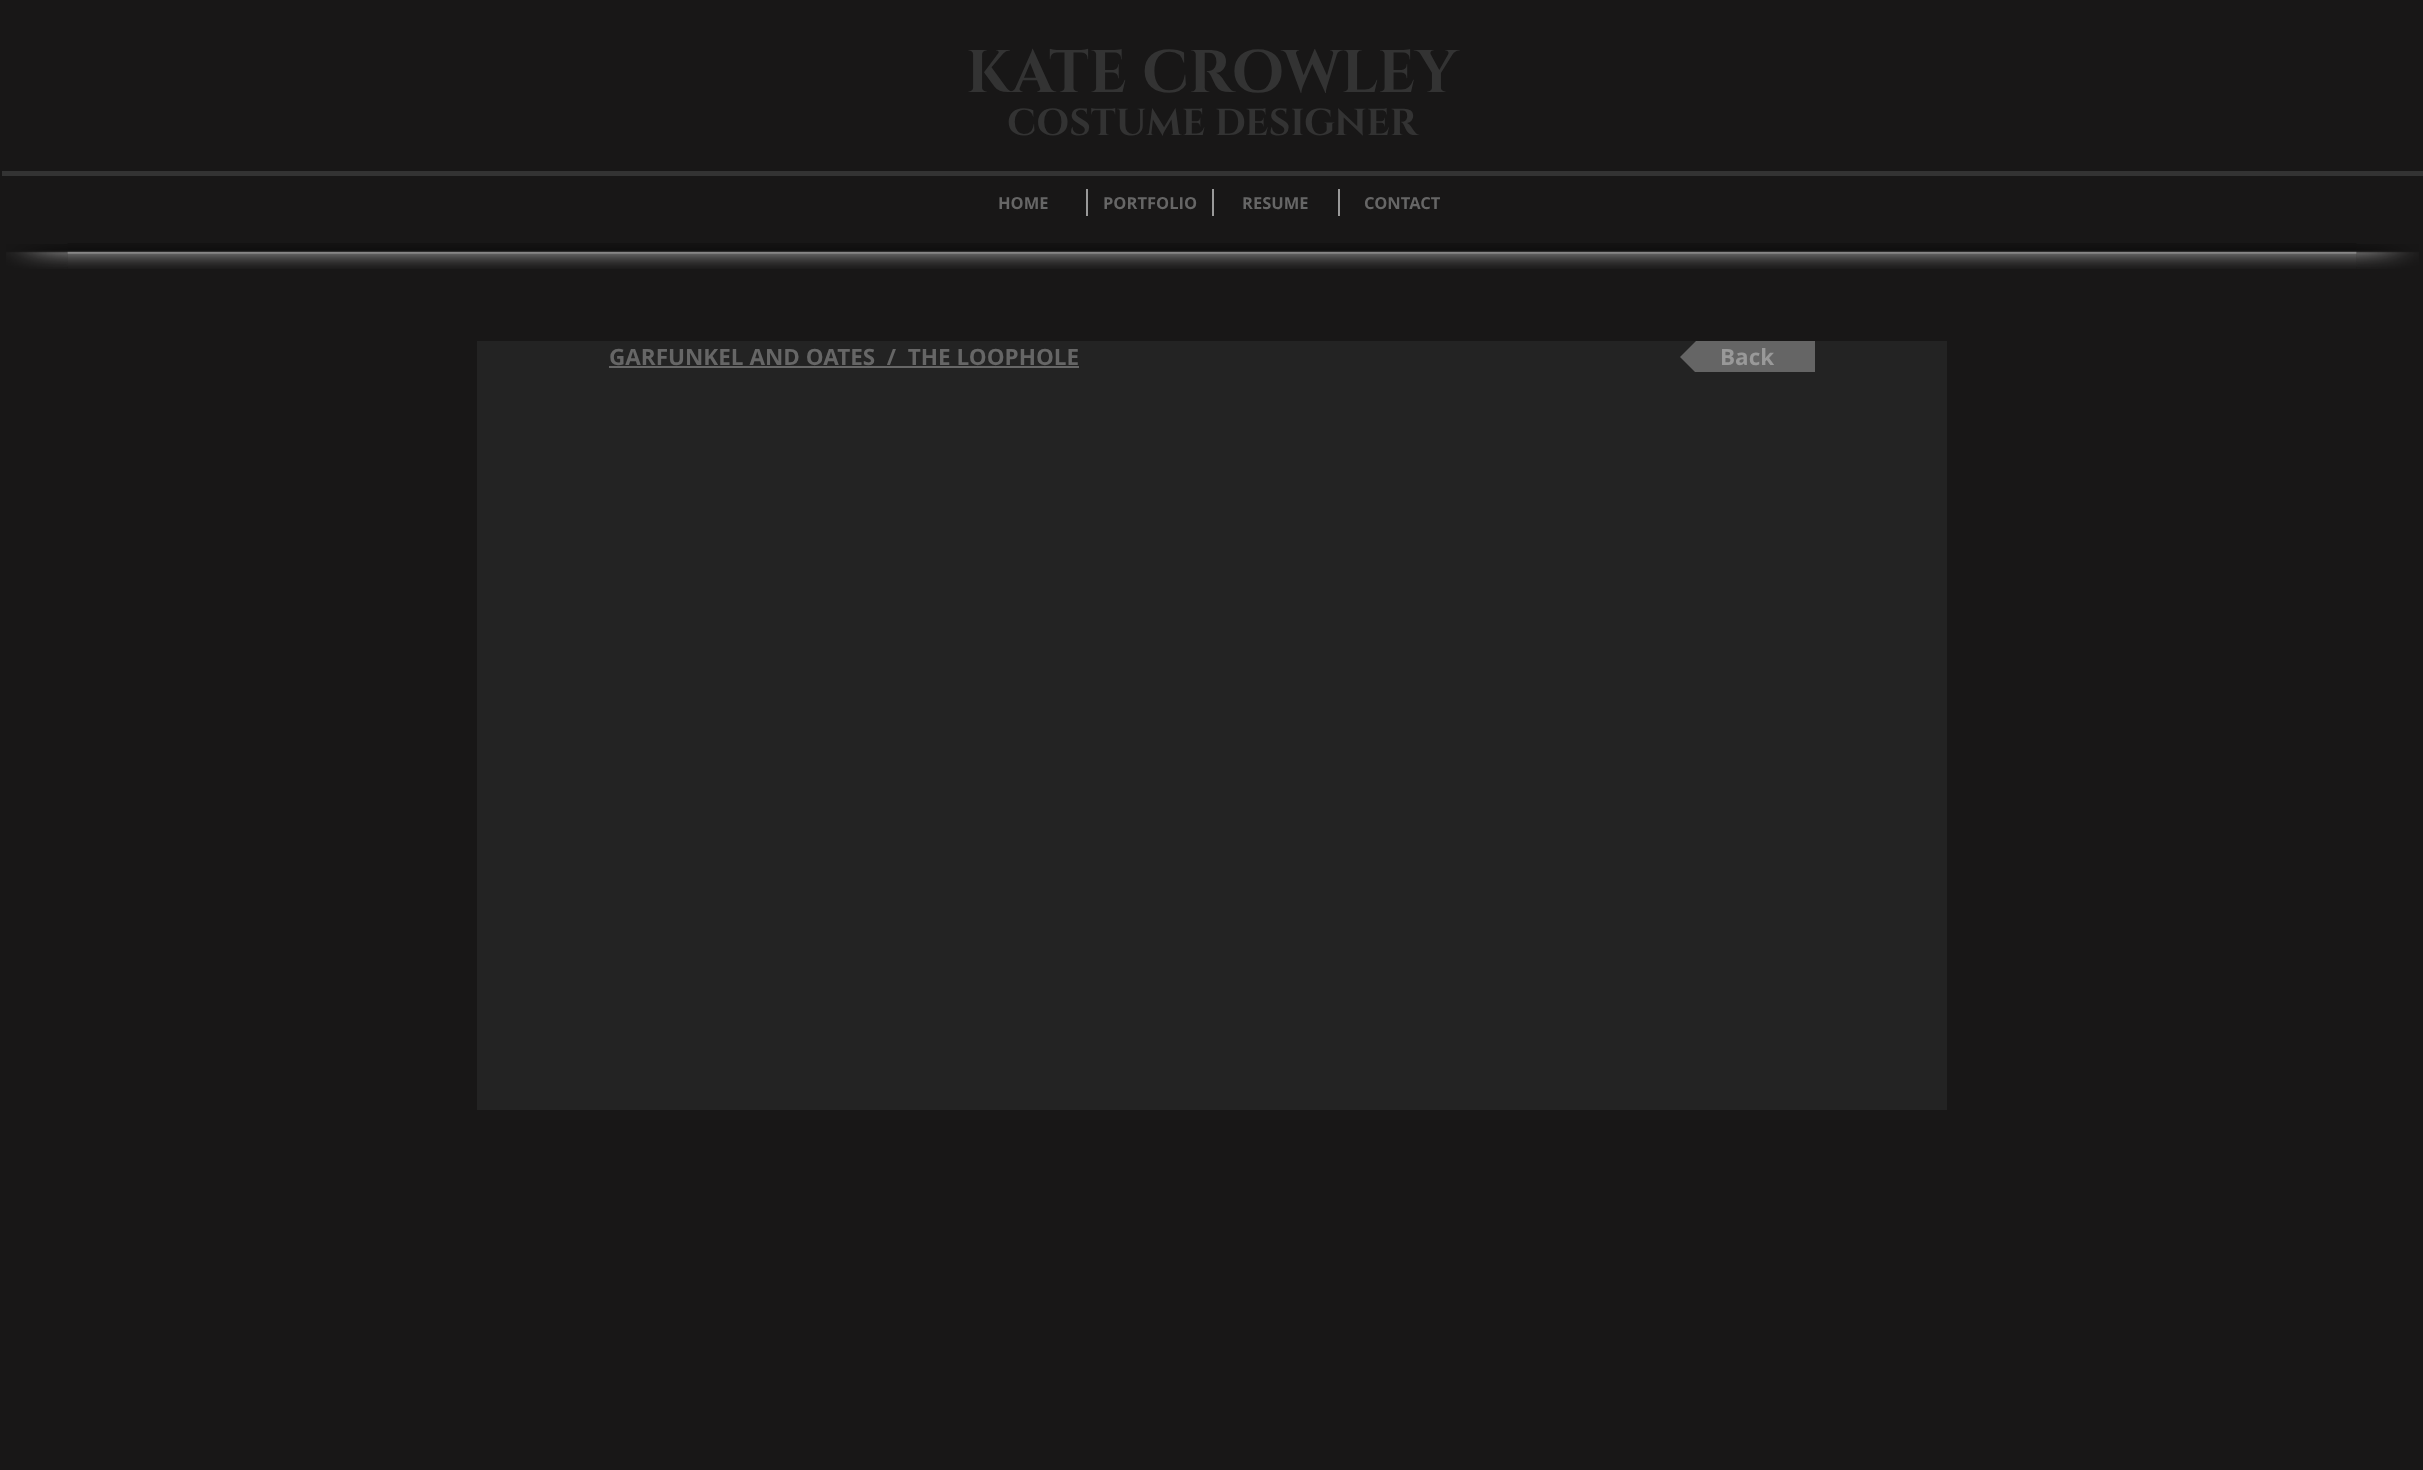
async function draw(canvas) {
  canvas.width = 2423;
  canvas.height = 1470;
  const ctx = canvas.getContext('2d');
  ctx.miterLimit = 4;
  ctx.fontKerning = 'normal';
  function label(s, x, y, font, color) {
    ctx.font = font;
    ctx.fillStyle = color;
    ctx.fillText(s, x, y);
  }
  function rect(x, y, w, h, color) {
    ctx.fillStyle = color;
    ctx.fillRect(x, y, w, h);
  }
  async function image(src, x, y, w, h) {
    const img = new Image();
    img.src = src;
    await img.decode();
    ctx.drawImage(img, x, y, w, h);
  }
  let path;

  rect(0, 0, 2423, 1470, '#181717');
  label('KATE CROWLEY', 966, 92, 'bold 60px Cinzel', '#333');
  label('COSTUME DESIGNER', 1007, 135, 'bold 37.5px Cinzel', '#333');
  rect(2, 171, 2421, 5, '#333');
  label('HOME', 998, 209, 'bold 16.5px Open Sans', '#666');
  rect(1086, 189, 2, 27, '#999');
  label('PORTFOLIO', 1103, 209, 'bold 16.5px Open Sans', '#666');
  rect(1212, 189, 2, 27, '#999');
  label('RESUME', 1242, 209, 'bold 16.5px Open Sans', '#666');
  rect(1338, 189, 2, 27, '#999');
  label('CONTACT', 1364, 209, 'bold 16.5px Open Sans', '#666');
  await image('assets/img1.png', 67, 243, 2290, 26);
  await image('assets/img2.png', 6, 244, 62, 25);
  await image('assets/img3.png', 2356, 244, 63, 25);
  rect(477, 341, 1470, 769, '#232323');
  label('GARFUNKEL AND OATES  /  THE LOOPHOLE', 609, 365, 'bold 22.5px Open Sans', '#666');
  rect(609, 366, 470, 2, '#666');
  ctx.save();
  ctx.beginPath();
  ctx.rect(1680, 341, 135, 31);
  ctx.clip();
  ctx.fillStyle = '#656565';
  path = new Path2D('M1755 357H1680L1755 282Z');
  ctx.fill(path);
  ctx.restore();
  rect(1755, 341, 60, 31, '#656565');
  ctx.save();
  ctx.beginPath();
  ctx.rect(1680, 341, 135, 31);
  ctx.clip();
  path = new Path2D('M1680 357H1755V432Z');
  ctx.fill(path);
  ctx.restore();
  label('Back', 1720, 365, 'bold 22.5px Open Sans', '#999');
}

draw(document.querySelector('canvas'));
